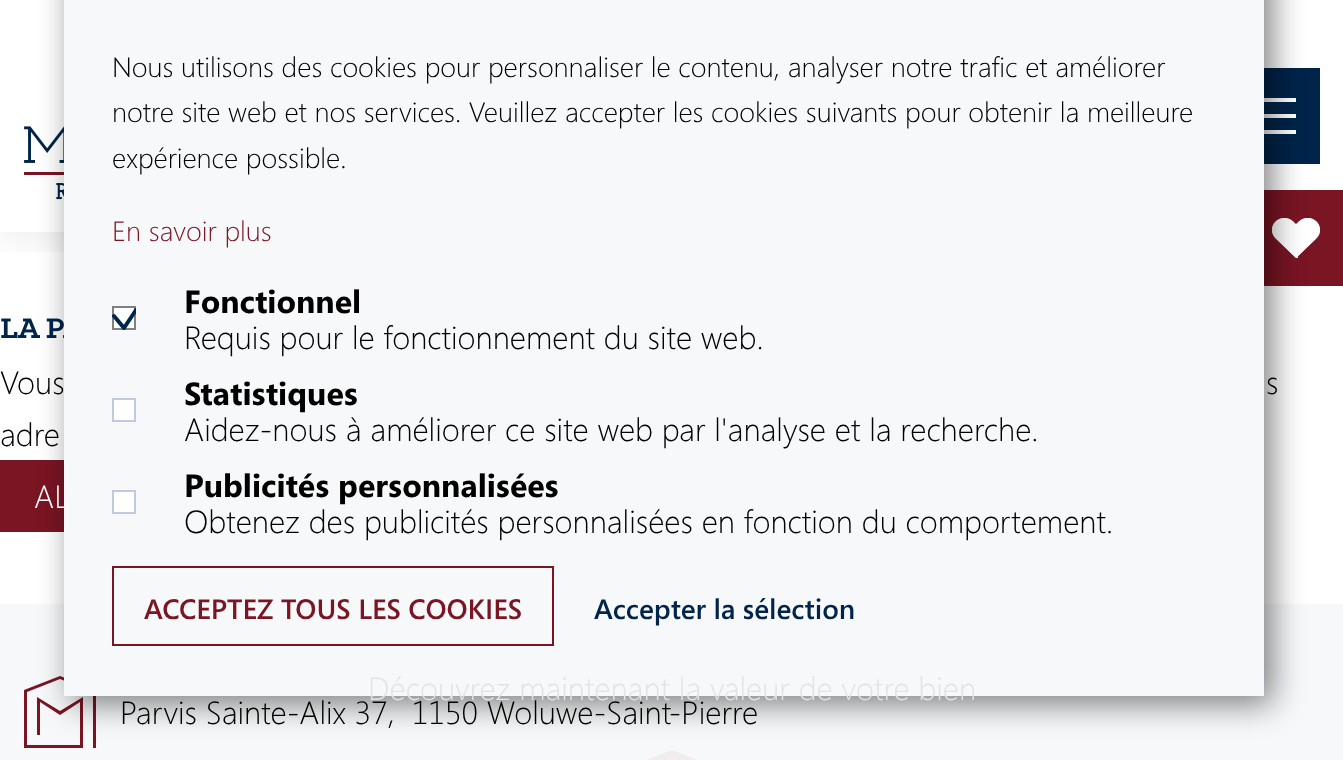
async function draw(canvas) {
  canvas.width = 1343;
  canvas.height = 760;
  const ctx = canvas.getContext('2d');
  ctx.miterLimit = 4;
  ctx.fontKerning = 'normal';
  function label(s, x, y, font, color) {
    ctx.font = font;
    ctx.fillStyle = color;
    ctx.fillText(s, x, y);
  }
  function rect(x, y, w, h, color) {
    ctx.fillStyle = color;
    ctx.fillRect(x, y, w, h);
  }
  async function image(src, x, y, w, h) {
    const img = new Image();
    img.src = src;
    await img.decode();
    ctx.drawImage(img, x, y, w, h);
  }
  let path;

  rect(0, 0, 1343, 760, '#fff');
  ctx.save();
  ctx.beginPath();
  ctx.rect(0, 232, 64, 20);
  ctx.clip();
  ctx.fillStyle = '#0000001a';
  ctx.filter = 'blur(24px)';
  ctx.beginPath();
  ctx.rect(0, 0, 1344, 232);
  ctx.fill();
  ctx.filter = 'none';
  ctx.restore();
  await image('assets/img1.png', 24, 126, 40, 74);
  rect(1264, 68, 32, 46, '#00244a');
  rect(1296, 68, 24, 50, '#00244a');
  rect(1264, 118, 56, 46, '#00244a');
  rect(1264, 98, 32, 4, '#fff');
  rect(1264, 130, 32, 4, '#fff');
  rect(1264, 190, 79, 96, '#7a1524');
  await image('assets/img2.png', 1272, 218, 48, 40);
  await image('assets/img3.png', 1, 318, 63, 20);
  rect(0, 460, 64, 72, '#7a1524');
  rect(0, 604, 1343, 156, '#f7f8f9');
  ctx.fillStyle = '#7a1524';
  path = new Path2D('M96 748H93V692L60 679L27 692V745H80V702L60 715L40 702V735H37V697L60 711L83 697V748H24V690L60 676L96 690Z');
  ctx.fill(path, 'evenodd');
  ctx.fillStyle = '#f1edee';
  path = new Path2D('M792 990H782V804L672 760L562 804V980H740V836L672 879L604 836V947H595V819L672 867L749 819V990H552V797L672 750L792 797Z');
  ctx.fill(path, 'evenodd');
  ctx.fillStyle = '#00000080';
  ctx.filter = 'blur(16px)';
  ctx.beginPath();
  ctx.rect(72, -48, 1200, 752);
  ctx.fill();
  ctx.filter = 'none';
  label('AL', 34, 508, '300 32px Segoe', '#fff');
  rect(64, 0, 1200, 696, '#f7f8f9');
  label('Nous utilisons des cookies pour personnaliser le contenu, analyser notre trafic et améliorer', 112, 77, '300 28px Segoe', '#000');
  label('notre site web et nos services. Veuillez accepter les cookies suivants pour obtenir la meilleure', 112, 122, '300 28px Segoe', '#000');
  label('expérience possible.', 112, 168, '300 28px Segoe', '#000');
  label('En savoir plus', 112, 241, '300 28px Segoe', '#7a1524');
  label('Fonctionnel', 184, 313, 'bold 32px Segoe', '#000');
  ctx.fillStyle = '#fff';
  ctx.beginPath();
  ctx.rect(113, 307, 22, 22);
  ctx.fill();
  ctx.strokeStyle = '#808080';
  ctx.lineWidth = 2;
  ctx.stroke();
  ctx.save();
  ctx.beginPath();
  ctx.rect(112, 308, 24, 22);
  ctx.clip();
  path = new Path2D('M114 316L124 328L136 310');
  ctx.strokeStyle = '#00244a';
  ctx.lineWidth = 4;
  ctx.lineCap = 'round';
  ctx.lineJoin = 'round';
  ctx.stroke(path);
  ctx.restore();
  label('Requis pour le fonctionnement du site web.', 184, 349, '300 32px Segoe', '#000');
  ctx.fillStyle = '#fff';
  ctx.beginPath();
  ctx.rect(113, 399, 22, 22);
  ctx.fill();
  ctx.strokeStyle = '#c1cadd';
  ctx.stroke();
  label('Statistiques', 184, 405, 'bold 32px Segoe', '#000');
  label('Aidez-nous à améliorer ce site web par l\'analyse et la recherche.', 184, 441, '300 32px Segoe', '#000');
  ctx.fillStyle = '#fff';
  ctx.beginPath();
  ctx.rect(113, 491, 22, 22);
  ctx.fill();
  ctx.stroke();
  label('Publicités personnalisées', 184, 497, 'bold 32px Segoe', '#000');
  label('Obtenez des publicités personnalisées en fonction du comportement.', 184, 533, '300 32px Segoe', '#000');
  ctx.strokeStyle = '#7a1524';
  ctx.strokeRect(113, 567, 440, 78);
  label('ACCEPTEZ TOUS LES COOKIES', 144, 619, '600 28px Segoe', '#7a1524');
  label('Accepter la sélection', 594, 619, '600 28px Segoe', '#00244a');
  label('Vous', 0, 394, '300 32px Segoe', '#000');
  label('s', 1266, 394, '300 32px Segoe', '#000');
  label('adre', 0, 446, '300 32px Segoe', '#000');
  label('Découvrez maintenant la valeur de votre bien', 368, 700, '300 32px Segoe', '#e2e3e4');
  label('Parvis Sainte-Alix 37,', 120, 724, '300 32px Segoe', '#000');
  label('1150 Woluwe-Saint-Pierre', 412, 724, '300 32px Segoe', '#000');
}

draw(document.querySelector('canvas'));
